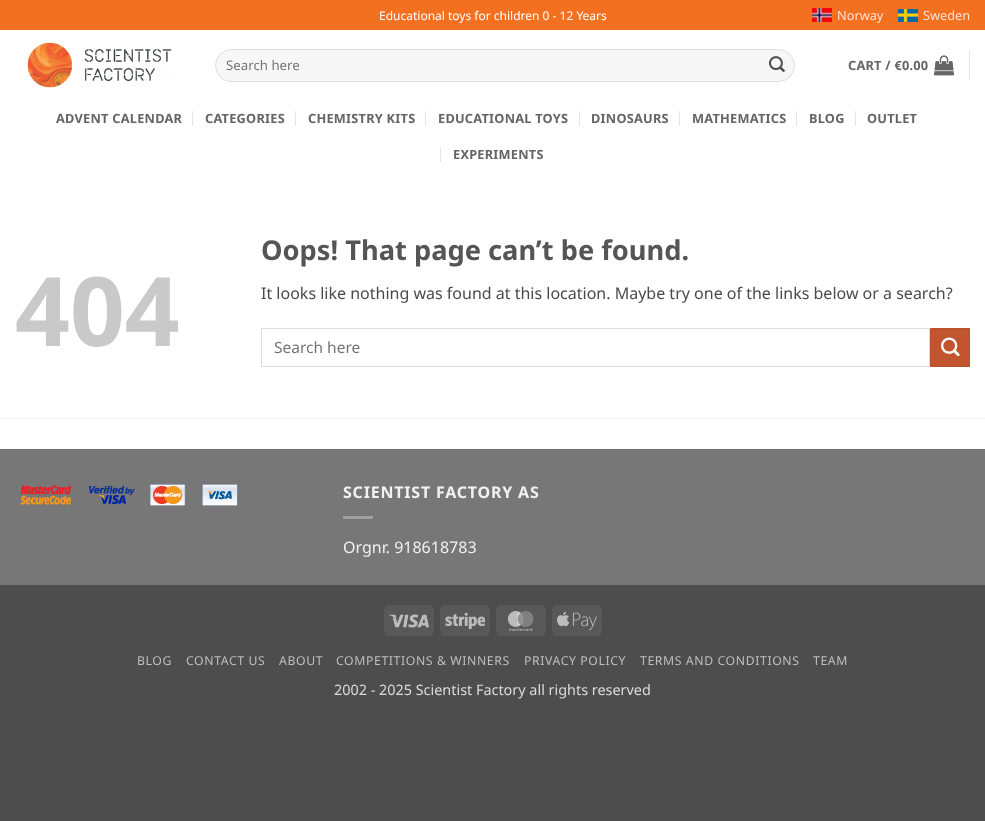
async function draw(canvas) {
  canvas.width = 985;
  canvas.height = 821;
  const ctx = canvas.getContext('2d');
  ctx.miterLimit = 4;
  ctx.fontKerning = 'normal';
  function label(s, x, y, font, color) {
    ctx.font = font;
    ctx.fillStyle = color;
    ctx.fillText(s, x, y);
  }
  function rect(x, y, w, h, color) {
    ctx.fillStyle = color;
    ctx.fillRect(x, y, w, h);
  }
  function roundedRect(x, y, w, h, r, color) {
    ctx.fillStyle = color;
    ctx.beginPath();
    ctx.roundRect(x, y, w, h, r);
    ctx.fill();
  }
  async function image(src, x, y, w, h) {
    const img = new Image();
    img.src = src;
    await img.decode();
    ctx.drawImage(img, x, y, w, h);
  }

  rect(0, 0, 985, 821, '#4d4d4d');
  rect(0, 30, 985, 419, '#fff');
  rect(0, 0, 985, 30, '#f37021');
  label('Educational toys for children 0 - 12 Years', 379, 20, '12px Noto Sans', '#fff');
  await image('assets/img1.png', 812, 8, 20, 14);
  label('Norway', 837, 20, '12.75px Noto Sans', '#fde2d3');
  await image('assets/img2.png', 898, 9, 20, 13);
  label('Sweden', 923, 20, '12.75px Noto Sans', '#fde2d3');
  await image('assets/img3.png', 27, 42, 145, 46);
  roundedRect(215, 49, 580, 33, 16.5, '#f7f7f7');
  ctx.beginPath();
  ctx.roundRect(215.5, 49.5, 579, 32, 16);
  ctx.strokeStyle = '#00000017';
  ctx.stroke();
  label('Search here', 226, 70, '13.25px Noto Sans', '#757575');
  await image('assets/img4.png', 769, 56, 16, 16);
  ctx.letterSpacing = '0.25px';
  label('CART / €0.00', 848, 70, 'bold 12.75px Noto Sans', '#656565');
  await image('assets/img5.png', 934, 55, 20, 21);
  rect(969, 50, 1, 30, '#e6e6e6');
  label('ADVENT CALENDAR', 56, 123, 'bold 12.75px Noto Sans', '#656565');
  rect(192, 111, 1, 15, '#e6e6e6');
  label('CATEGORIES', 205, 123, 'bold 12.75px Noto Sans', '#656565');
  rect(295, 111, 1, 15, '#e6e6e6');
  label('CHEMISTRY KITS', 308, 123, 'bold 12.75px Noto Sans', '#656565');
  rect(425, 111, 1, 15, '#e6e6e6');
  label('EDUCATIONAL TOYS', 438, 123, 'bold 12.75px Noto Sans', '#656565');
  rect(579, 111, 1, 15, '#e6e6e6');
  label('DINOSAURS', 591, 123, 'bold 12.75px Noto Sans', '#656565');
  rect(679, 111, 1, 15, '#e6e6e6');
  label('MATHEMATICS', 692, 123, 'bold 12.75px Noto Sans', '#656565');
  rect(796, 111, 1, 15, '#e6e6e6');
  label('BLOG', 809, 123, 'bold 12.75px Noto Sans', '#656565');
  rect(855, 111, 1, 15, '#e6e6e6');
  label('OUTLET', 867, 123, 'bold 12.75px Noto Sans', '#656565');
  rect(440, 147, 1, 15, '#e6e6e6');
  label('EXPERIMENTS', 453, 159, 'bold 12.75px Noto Sans', '#656565');
  ctx.letterSpacing = '0px';
  label('404', 15, 346, 'bold 96px Noto Sans', '#c9c9c9');
  label('Oops! That page can’t be found.', 261, 260, 'bold 27.25px Noto Sans', '#555');
  label('It looks like nothing was found at this location. Maybe try one of the links below or a search?', 261, 299, '16px Noto Sans', '#4a4a4a');
  ctx.strokeStyle = '#ddd';
  ctx.strokeRect(261.5, 328.5, 668, 38);
  label('Search here', 274, 353, '15.5px Noto Sans', '#757575');
  ctx.fillStyle = '#c05530';
  ctx.beginPath();
  ctx.rect(930.5, 328.5, 39, 38);
  ctx.fill();
  ctx.strokeStyle = '#b6512e';
  ctx.stroke();
  await image('assets/img6.png', 941, 337, 19, 20);
  rect(0, 418, 985, 1, '#f2f2f2');
  rect(0, 450, 985, 135, '#777');
  rect(0, 449, 985, 1, '#717171');
  await image('assets/img7.png', 20, 484, 218, 22);
  ctx.letterSpacing = '0.8px';
  label('SCIENTIST FACTORY AS', 343, 498, 'bold 16px Noto Sans', '#f1f1f1');
  rect(343, 516, 30, 3, '#a0a0a0');
  ctx.letterSpacing = '0px';
  label('Orgnr. 918618783', 343, 553, '16px Noto Sans', '#f1f1f1');
  roundedRect(384, 605, 50, 31, 5, '#585858');
  await image('assets/img8.png', 389, 614, 40, 14);
  roundedRect(440, 605, 50, 31, 5, '#585858');
  await image('assets/img9.png', 445, 612, 40, 18);
  roundedRect(496, 605, 50, 31, 5, '#585858');
  await image('assets/img10.png', 507, 611, 27, 20);
  roundedRect(552, 605, 50, 31, 5, '#585858');
  await image('assets/img11.png', 557, 611, 40, 20);
  ctx.letterSpacing = '0.6px';
  label('BLOG', 137, 665, '12.25px Noto Sans', '#bfbfbf');
  label('CONTACT US', 186, 665, '12.25px Noto Sans', '#bfbfbf');
  label('ABOUT', 279, 665, '12.25px Noto Sans', '#bfbfbf');
  label('COMPETITIONS & WINNERS', 336, 665, '12.25px Noto Sans', '#bfbfbf');
  label('PRIVACY POLICY', 524, 665, '12.25px Noto Sans', '#bfbfbf');
  label('TERMS AND CONDITIONS', 640, 665, '12.25px Noto Sans', '#bfbfbf');
  label('TEAM', 813, 665, '12.25px Noto Sans', '#bfbfbf');
  ctx.letterSpacing = '0px';
  label('2002 - 2025 Scientist Factory all rights reserved', 334, 695, '14.4px Noto Sans', '#dbdbdb');
}

draw(document.querySelector('canvas'));
